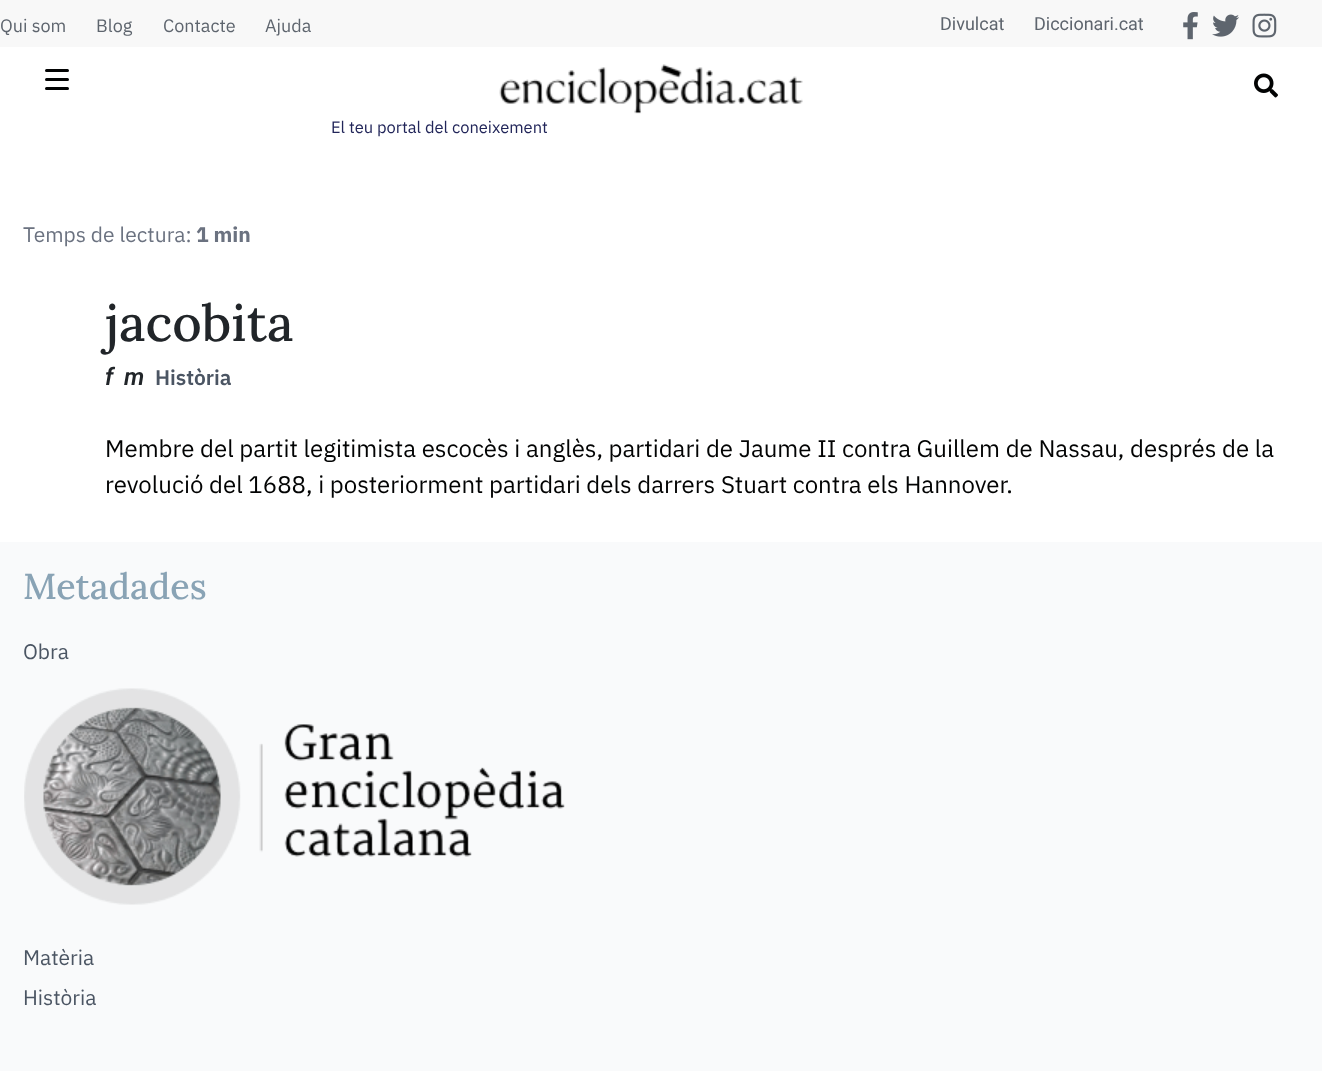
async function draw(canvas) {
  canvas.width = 1322;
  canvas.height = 1086;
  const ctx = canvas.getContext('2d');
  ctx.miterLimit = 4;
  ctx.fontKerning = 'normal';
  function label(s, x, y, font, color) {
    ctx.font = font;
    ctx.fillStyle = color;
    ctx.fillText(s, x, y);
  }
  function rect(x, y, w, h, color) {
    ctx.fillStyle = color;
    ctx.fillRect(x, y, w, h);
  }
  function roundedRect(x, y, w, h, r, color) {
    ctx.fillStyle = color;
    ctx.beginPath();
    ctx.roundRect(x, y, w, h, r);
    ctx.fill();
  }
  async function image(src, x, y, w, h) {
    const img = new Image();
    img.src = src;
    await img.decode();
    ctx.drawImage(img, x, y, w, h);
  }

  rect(0, 0, 1322, 1086, '#fff');
  rect(0, 0, 1322, 47, '#f8f8f8');
  label('Qui som', 0, 32, '18px IBM Plex Sans', '#5e656e');
  label('Blog', 96, 32, '18px IBM Plex Sans', '#5e656e');
  label('Contacte', 163, 32, '18px IBM Plex Sans', '#5e656e');
  label('Ajuda', 265, 32, '18px IBM Plex Sans', '#5e656e');
  label('Divulcat', 940, 30, '18px Roboto', '#5e656e');
  label('Diccionari.cat', 1034, 30, '18px Roboto', '#5e656e');
  await image('assets/img1.png', 1183, 12, 15, 28);
  await image('assets/img2.png', 1212, 14, 27, 23);
  await image('assets/img3.png', 1252, 13, 25, 25);
  roundedRect(45, 69, 24, 3, 1.5, '#020303');
  roundedRect(45, 78, 24, 3, 1.5, '#020303');
  roundedRect(45, 87, 24, 3, 1.5, '#020303');
  await image('assets/img4.png', 1254, 73, 24, 25);
  await image('assets/img5.png', 499, 64, 304, 50);
  label('El teu portal del coneixement', 331, 133, '16.5px IBM Plex Sans', '#212559');
  label('Temps de lectura:', 23, 242, '21px IBM Plex Sans', '#6b7280');
  label('1 min', 196, 242, 'bold 21px IBM Plex Sans', '#6b7280');
  label('jacobita', 105, 341, '500 51px Lora', '#212529');
  label('f', 105, 385, 'italic 600 24px Roboto', '#212529');
  label('m', 124, 385, 'italic 600 24px Roboto', '#212529');
  label('Història', 155, 385, '600 21px IBM Plex Sans', '#4b5563');
  label('Membre del partit legitimista escocès i anglès, partidari de Jaume II contra Guillem de Nassau, després de la', 105, 457, '24px IBM Plex Sans', '#020303');
  label('revolució del 1688, i posteriorment partidari dels darrers Stuart contra els Hannover.', 105, 493, '24px IBM Plex Sans', '#020303');
  rect(0, 542, 1322, 529, '#f9fafb');
  label('Metadades', 23, 599, '500 36px Lora', '#89a3b5');
  label('Obra', 23, 659, '21px IBM Plex Sans', '#4b5563');
  await image('assets/img6.png', 24, 688, 541, 217);
  label('Matèria', 23, 965, '21px IBM Plex Sans', '#4b5563');
  label('Història', 23, 1005, '21px IBM Plex Sans', '#4b5563');
}

draw(document.querySelector('canvas'));
